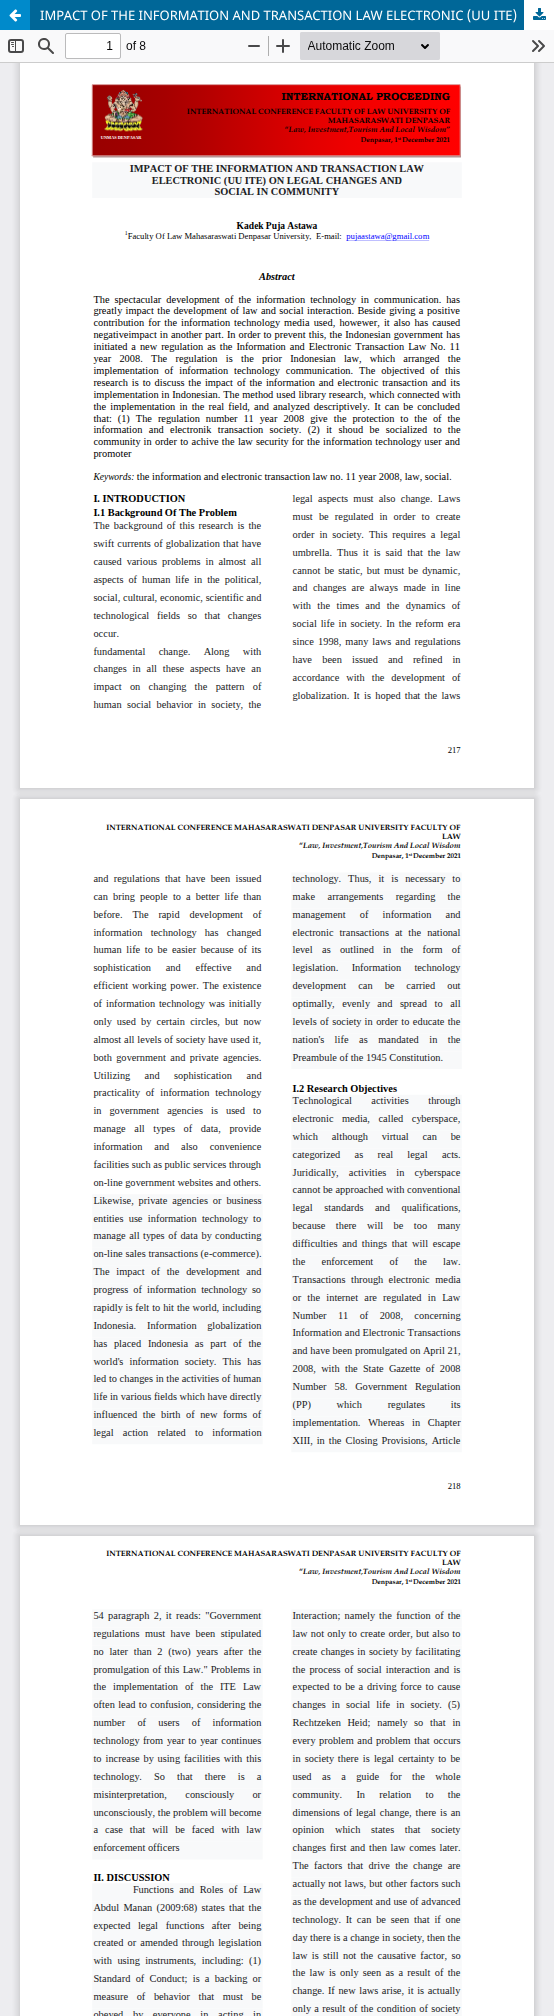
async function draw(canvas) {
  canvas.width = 554;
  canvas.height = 2016;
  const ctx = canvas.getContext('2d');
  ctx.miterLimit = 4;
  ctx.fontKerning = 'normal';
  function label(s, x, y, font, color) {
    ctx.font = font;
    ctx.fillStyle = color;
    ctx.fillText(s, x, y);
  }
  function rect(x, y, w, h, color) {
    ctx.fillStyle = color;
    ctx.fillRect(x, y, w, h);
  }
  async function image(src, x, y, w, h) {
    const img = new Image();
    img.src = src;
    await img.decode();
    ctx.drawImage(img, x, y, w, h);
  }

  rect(0, 0, 554, 2016, '#fff');
  rect(30, 0, 494, 30, '#006798');
  rect(0, 0, 30, 30, '#008acb');
  await image('assets/img1.png', 9, 9, 12, 13);
  label('IMPACT OF THE INFORMATION AND TRANSACTION LAW ELECTRONIC (UU ITE)', 40, 20, '13px Noto Sans', '#fff');
  await image('assets/img2.png', 533, 8, 13, 12);
  await image('assets/img3.png', 0, 30, 554, 1986);
}

draw(document.querySelector('canvas'));
